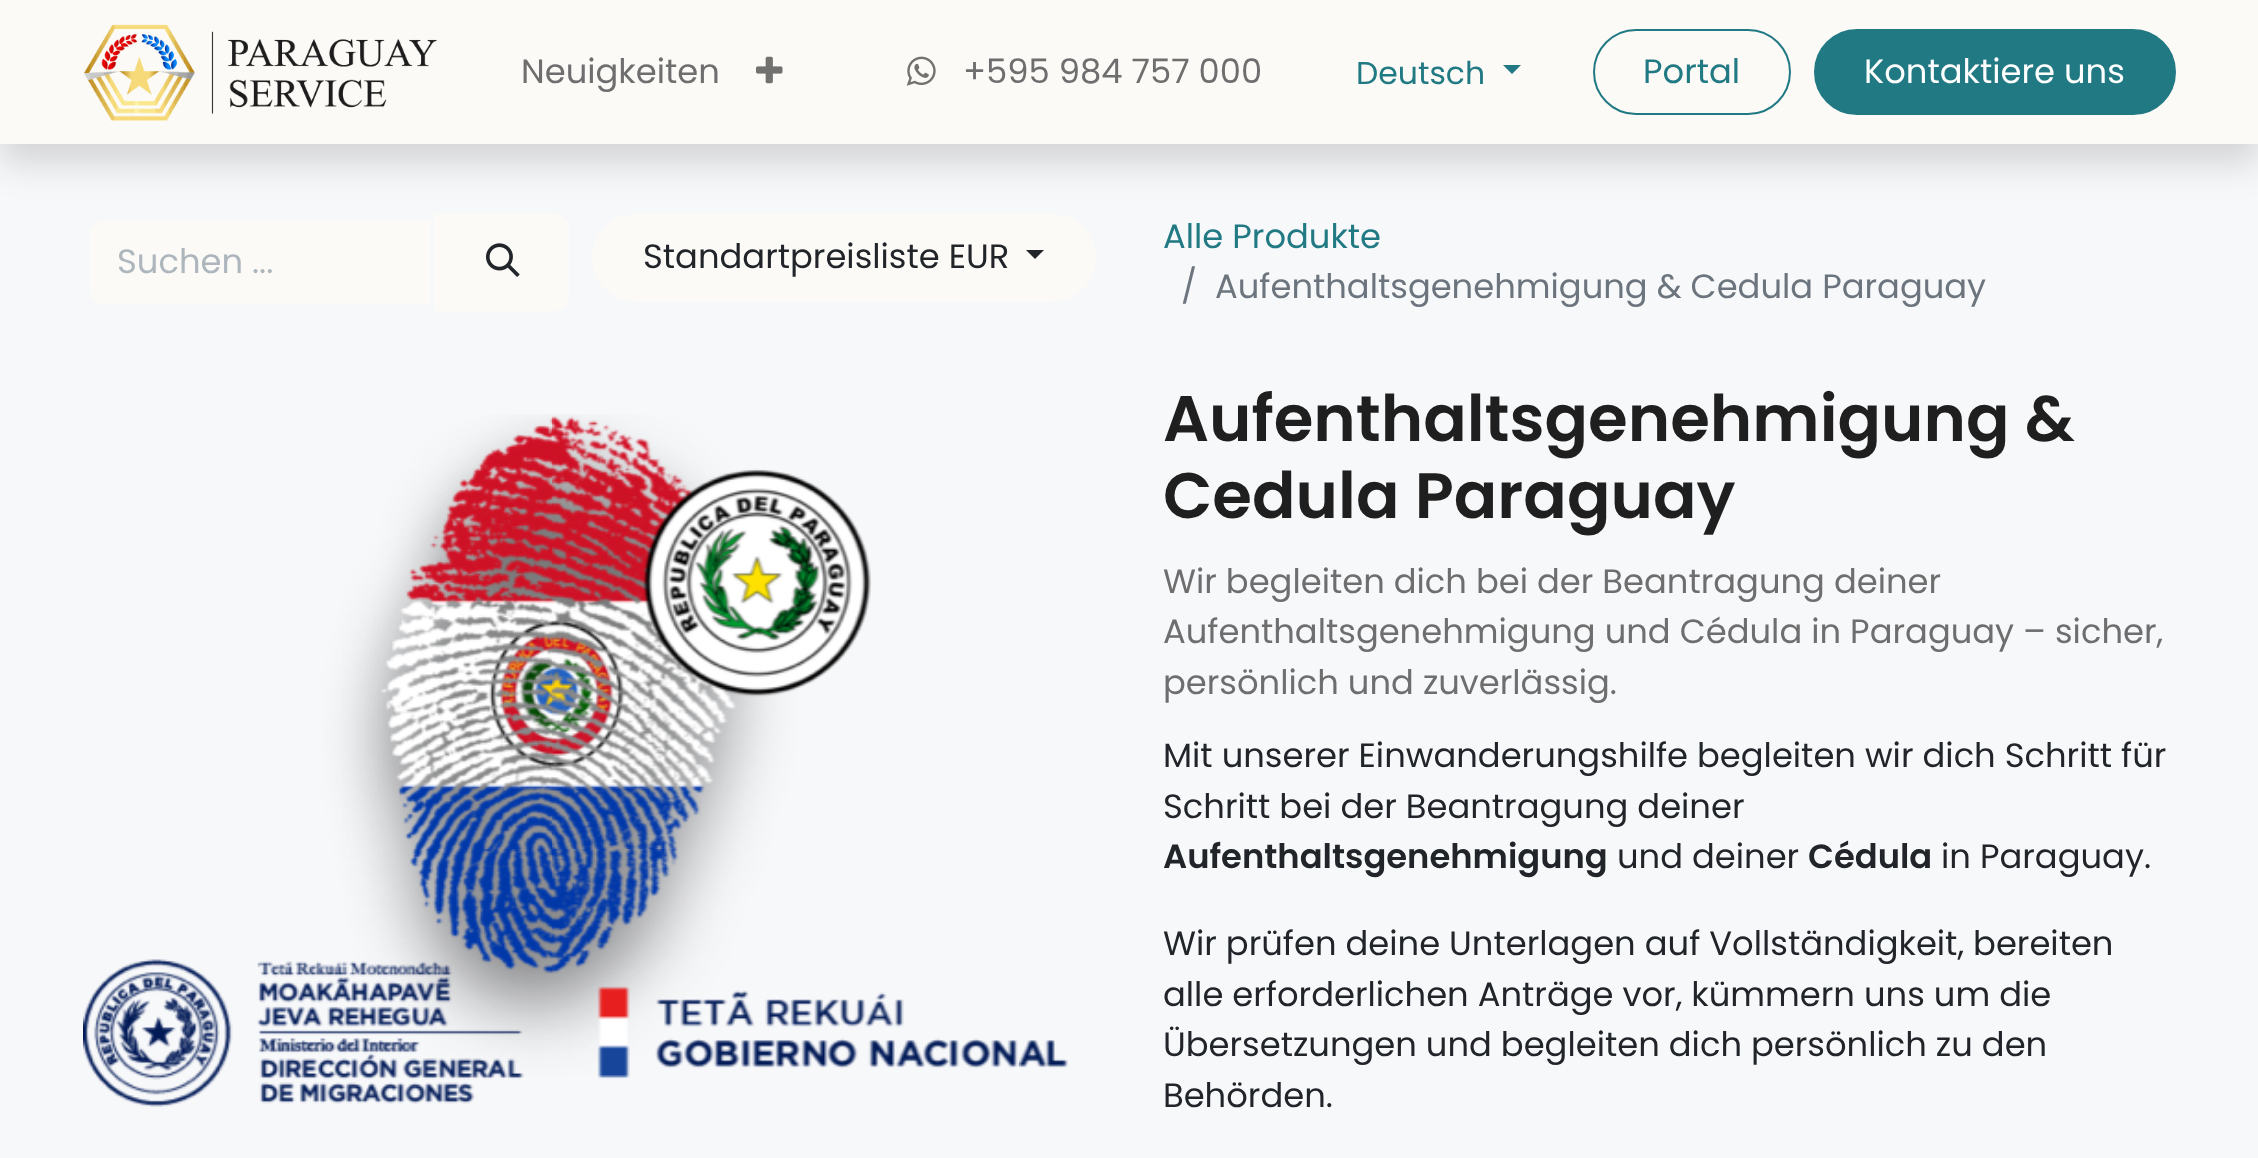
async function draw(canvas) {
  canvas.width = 2258;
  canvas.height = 1158;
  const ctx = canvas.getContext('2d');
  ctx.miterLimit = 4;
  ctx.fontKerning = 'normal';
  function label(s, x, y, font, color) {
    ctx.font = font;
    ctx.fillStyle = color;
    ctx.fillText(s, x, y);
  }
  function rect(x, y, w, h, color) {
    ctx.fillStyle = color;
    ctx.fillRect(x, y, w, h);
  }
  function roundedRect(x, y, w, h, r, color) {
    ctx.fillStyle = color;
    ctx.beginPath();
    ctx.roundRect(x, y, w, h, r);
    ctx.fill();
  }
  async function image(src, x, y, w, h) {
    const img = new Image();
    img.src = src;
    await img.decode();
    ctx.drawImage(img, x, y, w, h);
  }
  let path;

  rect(0, 0, 2258, 1158, '#f7f8fa');
  ctx.fillStyle = '#fbfaf6';
  ctx.beginPath();
  ctx.roundRect(434, 214, 135, 97, [0, 14, 14, 0]);
  ctx.fill();
  roundedRect(592, 214, 504, 88, 44, '#fbfaf6');
  ctx.fillStyle = '#00000026';
  ctx.filter = 'blur(18px)';
  ctx.beginPath();
  ctx.rect(0, 18, 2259, 144);
  ctx.fill();
  ctx.filter = 'none';
  rect(0, 0, 2258, 144, '#fbfaf6');
  await image('assets/img1.png', 84, 24, 353, 97);
  label('Neuigkeiten', 521, 83, '33.75px Poppins', '#6e6e6f');
  await image('assets/img2.png', 756, 56, 27, 28);
  await image('assets/img3.png', 906, 56, 30, 30);
  label('+595 984 757 000', 963, 83, '33.75px Poppins', '#6e6e6f');
  label('Deutsch', 1356, 84, '31.5px Poppins', '#217983');
  path = new Path2D('M1503 65H1521L1512 74Z');
  ctx.fill(path);
  ctx.beginPath();
  ctx.roundRect(1594, 30, 196, 84, 42);
  ctx.strokeStyle = '#217983';
  ctx.lineWidth = 2;
  ctx.stroke();
  label('Portal', 1643, 83, '33.75px Poppins', '#217983');
  ctx.beginPath();
  ctx.roundRect(1815, 30, 360, 84, 42);
  ctx.fill();
  ctx.stroke();
  label('Kontaktiere uns', 1864, 83, '33.75px Poppins', '#fff');
  ctx.fillStyle = '#fbfaf6';
  ctx.beginPath();
  ctx.roundRect(90, 221, 340, 83, [14, 0, 0, 14]);
  ctx.fill();
  label('Suchen ...', 117, 273, '33.75px Poppins', '#adb5bd');
  await image('assets/img4.png', 486, 243, 34, 34);
  label('Standartpreisliste EUR', 643, 268, '33.75px Poppins', '#212529');
  path = new Path2D('M1026 250H1044L1035 259Z');
  ctx.fill(path);
  label('Alle Produkte', 1163, 248, '33.75px Poppins', '#217983');
  label('/', 1181, 298, '33.75px Poppins', '#6c757d');
  label('Aufenthaltsgenehmigung & Cedula Paraguay', 1215, 298, '33.75px Poppins', '#6c757d');
  await image('assets/img5.png', 83, 414, 985, 693);
  label('Aufenthaltsgenehmigung &', 1163, 441, '600 64.25px Poppins', '#1f1f1f');
  label('Cedula Paraguay', 1163, 518, '600 64.25px Poppins', '#1f1f1f');
  label('Wir begleiten dich bei der Beantragung deiner', 1163, 593, '33.75px Poppins', '#6e6e6f');
  label('Aufenthaltsgenehmigung und Cédula in Paraguay – sicher,', 1163, 643, '33.75px Poppins', '#6e6e6f');
  label('persönlich und zuverlässig.', 1163, 694, '33.75px Poppins', '#6e6e6f');
  label('Mit unserer Einwanderungshilfe begleiten wir dich Schritt für', 1163, 767, '33.75px Poppins', '#212529');
  label('Schritt bei der Beantragung deiner', 1163, 818, '33.75px Poppins', '#212529');
  label('Aufenthaltsgenehmigung', 1163, 868, '600 33.75px Poppins', '#212529');
  label('und deiner', 1617, 868, '33.75px Poppins', '#212529');
  label('Cédula', 1808, 868, '600 33.75px Poppins', '#212529');
  label('in Paraguay.', 1941, 868, '33.75px Poppins', '#212529');
  label('Wir prüfen deine Unterlagen auf Vollständigkeit, bereiten', 1163, 955, '33.75px Poppins', '#212529');
  label('alle erforderlichen Anträge vor, kümmern uns um die', 1163, 1006, '33.75px Poppins', '#212529');
  label('Übersetzungen und begleiten dich persönlich zu den', 1163, 1056, '33.75px Poppins', '#212529');
  label('Behörden.', 1163, 1107, '33.75px Poppins', '#212529');
}

draw(document.querySelector('canvas'));
